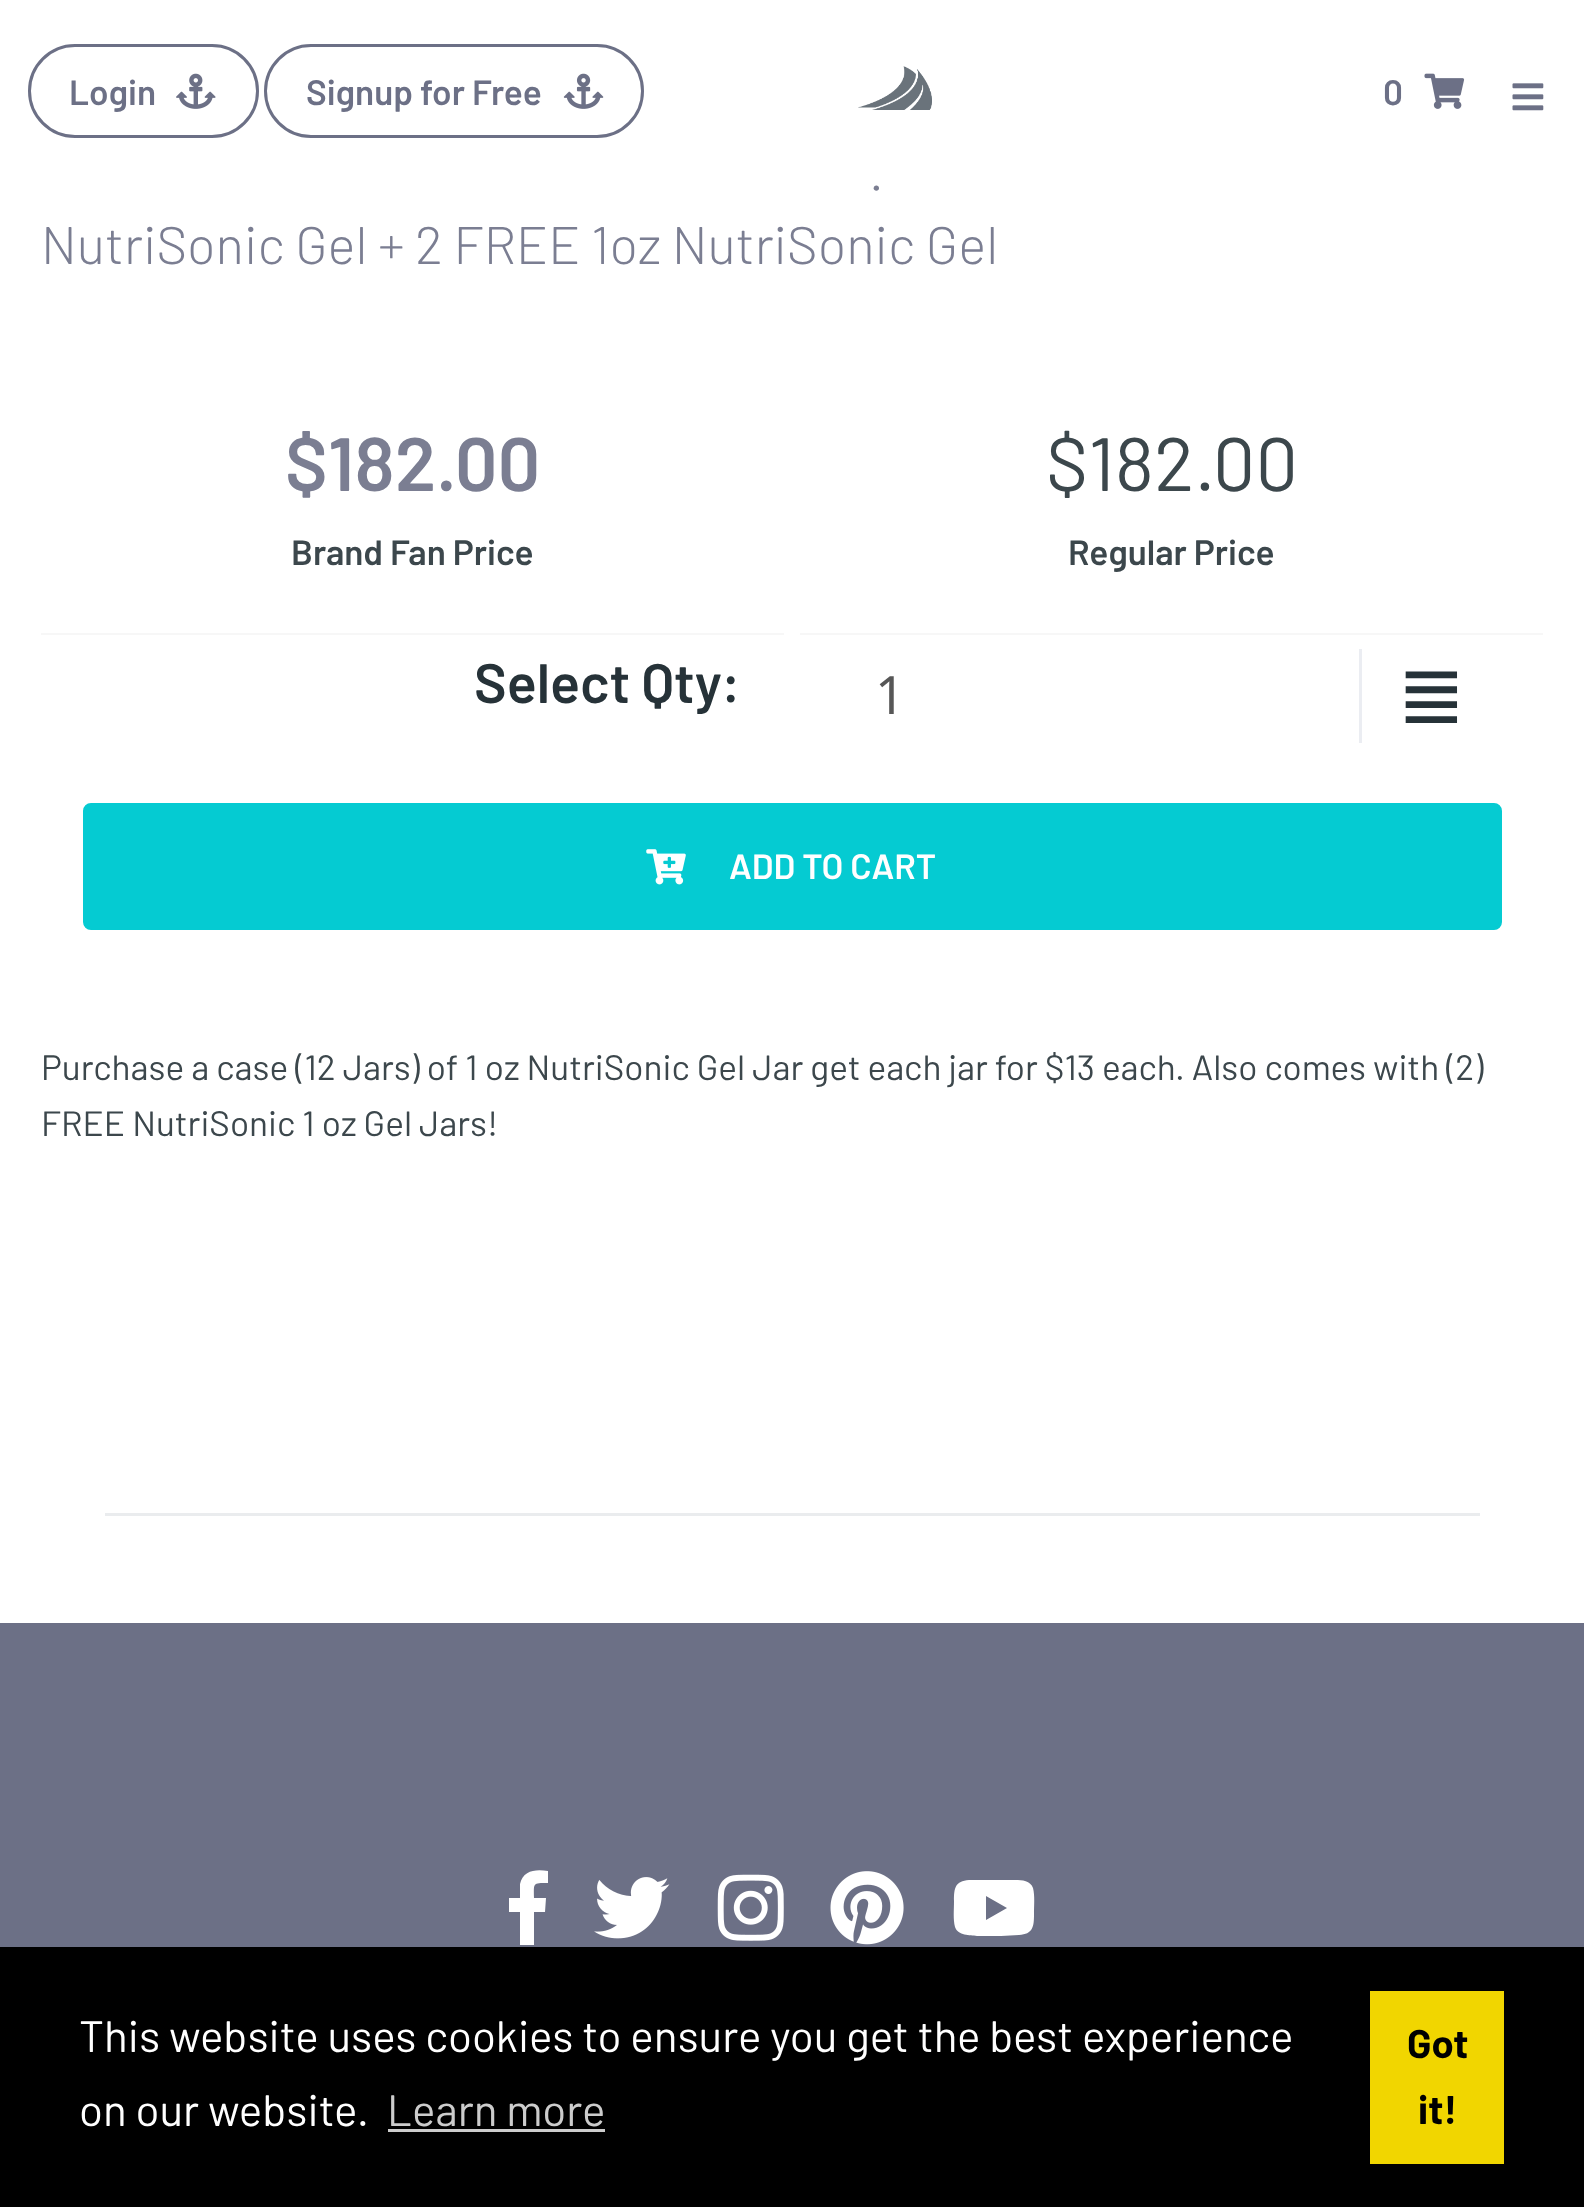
async function draw(canvas) {
  canvas.width = 1584;
  canvas.height = 2207;
  const ctx = canvas.getContext('2d');
  ctx.miterLimit = 4;
  ctx.fontKerning = 'normal';
  function label(s, x, y, font, color) {
    ctx.font = font;
    ctx.fillStyle = color;
    ctx.fillText(s, x, y);
  }
  function rect(x, y, w, h, color) {
    ctx.fillStyle = color;
    ctx.fillRect(x, y, w, h);
  }
  async function image(src, x, y, w, h) {
    const img = new Image();
    img.src = src;
    await img.decode();
    ctx.drawImage(img, x, y, w, h);
  }
  let path;

  rect(0, 0, 1584, 2207, '#fff');
  ctx.beginPath();
  ctx.roundRect(29.5, 45.5, 228, 91, 45.5);
  ctx.strokeStyle = '#6c7086';
  ctx.lineWidth = 3;
  ctx.stroke();
  label('Login', 69, 105, '600 35.2px Barlow', '#6c7086');
  await image('assets/img1.png', 176, 73, 40, 36);
  ctx.beginPath();
  ctx.roundRect(265.5, 45.5, 377, 91, 45.5);
  ctx.stroke();
  label('Signup for Free', 306, 105, '600 35.2px Barlow', '#6c7086');
  await image('assets/img2.png', 563, 73, 41, 36);
  await image('assets/img3.png', 858, 66, 74, 44);
  label('0', 1383, 105, '600 35.2px Barlow', '#6c7086');
  await image('assets/img4.png', 1424, 73, 41, 36);
  await image('assets/img5.png', 1512, 83, 32, 28);
  label('.', 869, 191, '300 52.75px Barlow', '#7b7e92');
  label('NutriSonic Gel + 2 FREE 1oz NutriSonic Gel', 41, 264, '300 52.75px Barlow', '#7b7e92');
  ctx.fillStyle = '#f7f7f7';
  path = new Path2D('M41 355V635H784V355V632H41Z');
  ctx.fill(path);
  rect(41, 632, 743, 1, '#fff');
  label('$182.00', 285, 491, '600 75.5px Barlow', '#7b7e92');
  label('Brand Fan Price', 291, 565, '600 35.2px Barlow', '#3c474c');
  ctx.fillStyle = '#f7f7f7';
  path = new Path2D('M800 355V635H1543V355V632H800Z');
  ctx.fill(path);
  rect(800, 632, 743, 1, '#fff');
  label('$182.00', 1046, 491, '75.5px Barlow', '#3c474c');
  label('Regular Price', 1068, 565, '600 35.2px Barlow', '#3c474c');
  label('Select Qty:', 474, 703, '600 55.5px Barlow', '#263238');
  label('1', 875, 714, '52.75px Noto Sans', '#575757');
  rect(1359, 649, 3, 94, '#ebedf2');
  label('≣', 1397, 723, '82px DejaVu Sans', '#263238');
  ctx.fillStyle = '#05cbd2';
  ctx.beginPath();
  ctx.roundRect(84.5, 804.5, 1416, 124, 6.5);
  ctx.fill();
  ctx.strokeStyle = '#05cbd2';
  ctx.stroke();
  await image('assets/img6.png', 646, 849, 40, 36);
  label('ADD TO CART', 729, 879, '600 35.2px Barlow', '#fff');
  label('Purchase a case (12 Jars) of 1 oz NutriSonic Gel Jar get each jar for $13 each. Also comes with (2)', 41, 1080, '35.2px Barlow', '#3c474c');
  label('FREE NutriSonic 1 oz Gel Jars!', 41, 1136, '35.2px Barlow', '#3c474c');
  rect(105, 1513, 1375, 3, '#eaecee');
  rect(0, 1623, 1584, 324, '#6c7086');
  ctx.fillStyle = '#fff';
  path = new Path2D('M520 1945V1912H509V1898H520V1884C523 1870 536 1869 548 1871V1883C532 1883 534 1883 534 1898H546L545 1912H534V1945Z');
  ctx.fill(path);
  await image('assets/img7.png', 594, 1877, 76, 62);
  await image('assets/img8.png', 717, 1874, 67, 67);
  await image('assets/img9.png', 830, 1871, 74, 74);
  path = new Path2D('M1033 1888C1030 1879 1018 1880 1011 1880H987H969C955 1881 954 1888 954 1901C954 1910 953 1919 955 1927C958 1936 970 1935 977 1936H1001L1019 1935C1033 1934 1034 1927 1034 1914C1034 1905 1035 1896 1033 1888ZM986 1920V1896L1007 1908Z');
  ctx.fill(path);
  rect(0, 1947, 1584, 260, '#000');
  label('This website uses cookies to ensure you get the best experience', 79, 2052, '44px Barlow', '#fff');
  label('on our website.', 79, 2126, '44px Barlow', '#fff');
  label('Learn more', 387, 2126, '44px Barlow', '#ccc');
  rect(388, 2129, 217, 3, '#ccc');
  rect(1370, 1991, 134, 173, '#f1d600');
  label('Got', 1407, 2058, 'bold 40px Barlow', '#000');
  label('it!', 1418, 2124, 'bold 40px Barlow', '#000');
}

draw(document.querySelector('canvas'));
